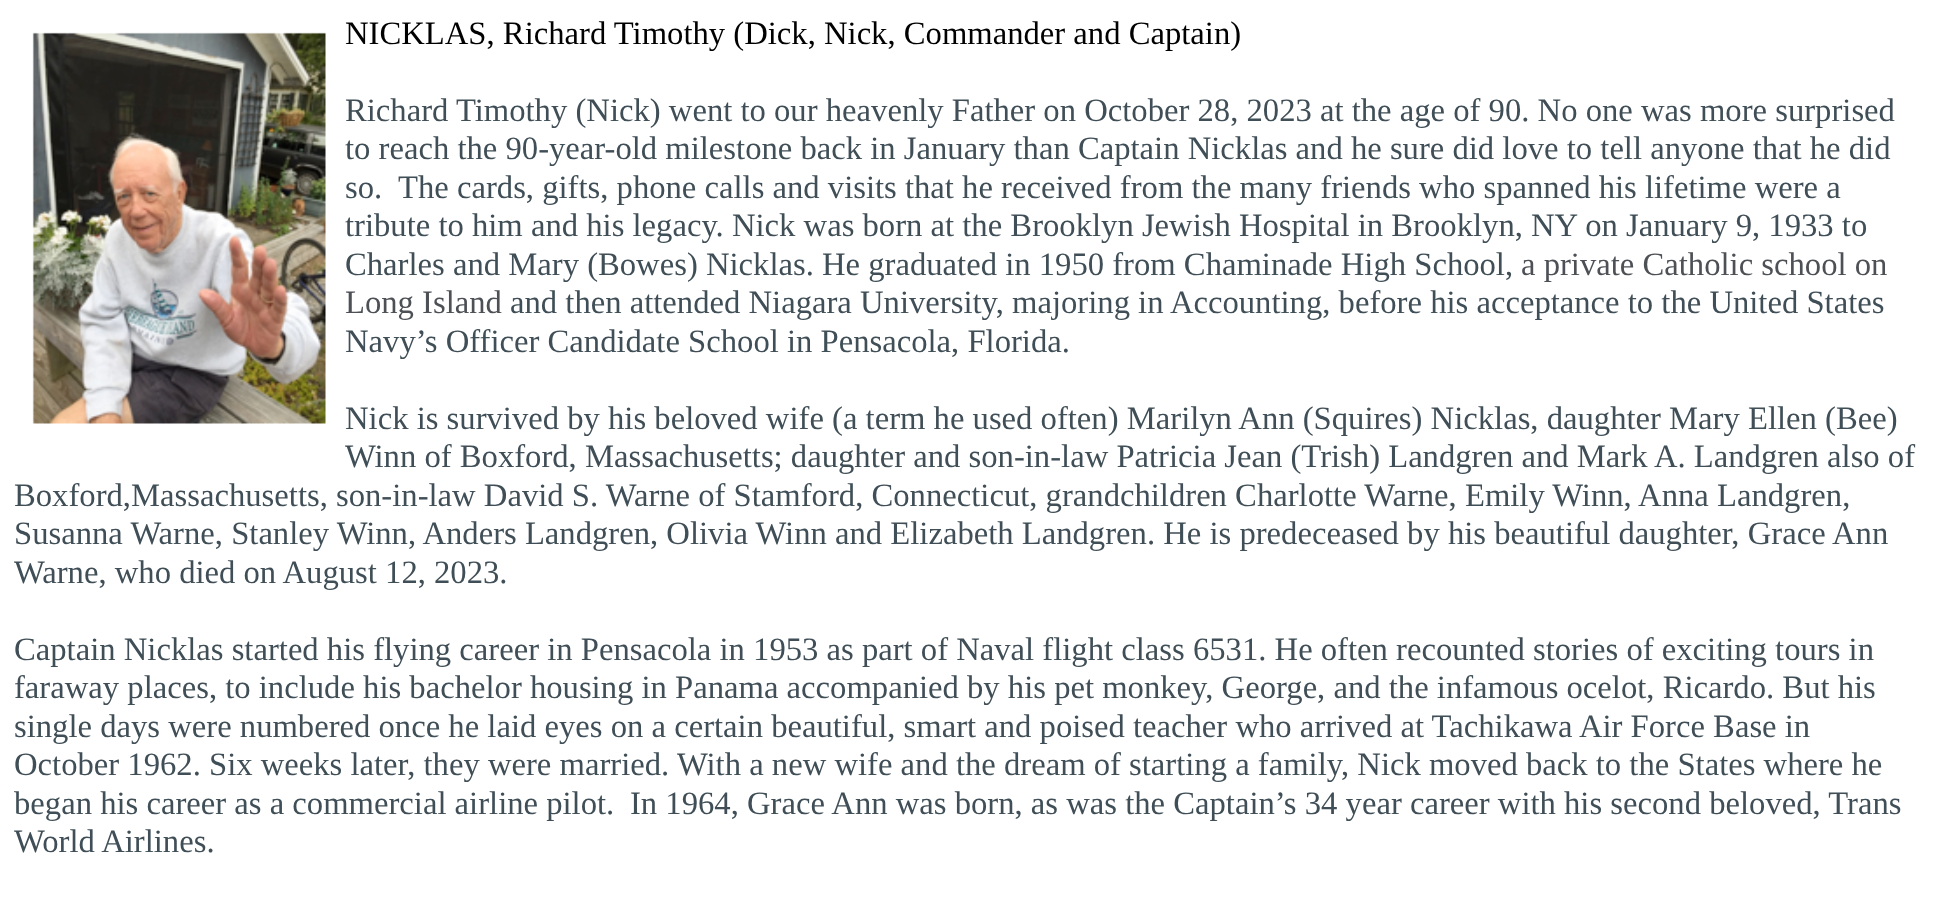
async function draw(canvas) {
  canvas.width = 1935;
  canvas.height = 899;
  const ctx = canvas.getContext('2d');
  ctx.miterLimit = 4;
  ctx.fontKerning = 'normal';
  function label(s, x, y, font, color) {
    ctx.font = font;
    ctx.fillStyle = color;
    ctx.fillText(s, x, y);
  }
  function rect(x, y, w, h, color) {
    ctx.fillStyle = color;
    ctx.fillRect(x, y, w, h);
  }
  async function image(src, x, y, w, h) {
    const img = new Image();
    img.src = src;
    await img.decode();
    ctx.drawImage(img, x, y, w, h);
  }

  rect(0, 0, 1935, 899, '#fff');
  await image('assets/img1.png', 32, 32, 294, 392);
  label('NICKLAS, Richard Timothy (Dick, Nick, Commander and Captain)', 345, 44, '32.67px Liberation Serif', '#000');
  label('Richard Timothy (Nick) went to our heavenly Father on October 28, 2023 at the age of 90. No one was more surprised', 345, 121, '32.67px Liberation Serif', '#404f57');
  label('to reach the 90-year-old milestone back in January than Captain Nicklas and he sure did love to tell anyone that he did', 345, 159, '32.67px Liberation Serif', '#404f57');
  label('so.', 345, 198, '32.67px Liberation Serif', '#404f57');
  label('The cards, gifts, phone calls and visits that he received from the many friends who spanned his lifetime were a', 398, 198, '32.67px Liberation Serif', '#404f57');
  label('tribute to him and his legacy. Nick was born at the Brooklyn Jewish Hospital in Brooklyn, NY on January 9, 1933 to', 345, 236, '32.67px Liberation Serif', '#404f57');
  label('Charles and Mary (Bowes) Nicklas. He graduated in 1950 from Chaminade High School,', 345, 275, '32.67px Liberation Serif', '#404f57');
  label('a private Catholic school on', 1521, 275, '32.67px Liberation Serif', '#4d5156');
  label('Long Island', 345, 313, '32.67px Liberation Serif', '#4d5156');
  label('and then attended Niagara University, majoring in Accounting, before his acceptance to the United States', 510, 313, '32.67px Liberation Serif', '#404f57');
  label('Navy’s Officer Candidate School in Pensacola, Florida.', 345, 352, '32.67px Liberation Serif', '#404f57');
  label('Nick is survived by his beloved wife (a term he used often) Marilyn Ann (Squires) Nicklas, daughter Mary Ellen (Bee)', 345, 429, '32.67px Liberation Serif', '#404f57');
  label('Winn of Boxford, Massachusetts; daughter and son-in-law Patricia Jean (Trish) Landgren and Mark A. Landgren also of', 345, 467, '32.67px Liberation Serif', '#404f57');
  label('Boxford,Massachusetts, son-in-law David S. Warne of Stamford, Connecticut, grandchildren Charlotte Warne, Emily Winn, Anna Landgren,', 14, 506, '32.67px Liberation Serif', '#404f57');
  label('Susanna Warne, Stanley Winn, Anders Landgren, Olivia Winn and Elizabeth Landgren. He is predeceased by his beautiful daughter, Grace Ann', 14, 544, '32.67px Liberation Serif', '#404f57');
  label('Warne, who died on August 12, 2023.', 14, 583, '32.67px Liberation Serif', '#404f57');
  label('Captain Nicklas started his flying career in Pensacola in 1953 as part of Naval flight class 6531. He often recounted stories of exciting tours in', 14, 660, '32.67px Liberation Serif', '#404f57');
  label('faraway places, to include his bachelor housing in Panama accompanied by his pet monkey, George, and the infamous ocelot, Ricardo. But his', 14, 698, '32.67px Liberation Serif', '#404f57');
  label('single days were numbered once he laid eyes on a certain beautiful, smart and poised teacher who arrived at Tachikawa Air Force Base in', 14, 737, '32.67px Liberation Serif', '#404f57');
  label('October 1962. Six weeks later, they were married.', 14, 775, '32.67px Liberation Serif', '#404f57');
  label('With a new wife and the dream of starting a family, Nick moved back to the States where he', 677, 775, '32.67px Liberation Serif', '#404f57');
  label('began his career as a commercial airline pilot.', 14, 814, '32.67px Liberation Serif', '#404f57');
  label('In 1964, Grace Ann was born, as was the Captain’s 34 year career with his second beloved, Trans', 630, 814, '32.67px Liberation Serif', '#404f57');
  label('World Airlines.', 14, 852, '32.67px Liberation Serif', '#404f57');
}

draw(document.querySelector('canvas'));
